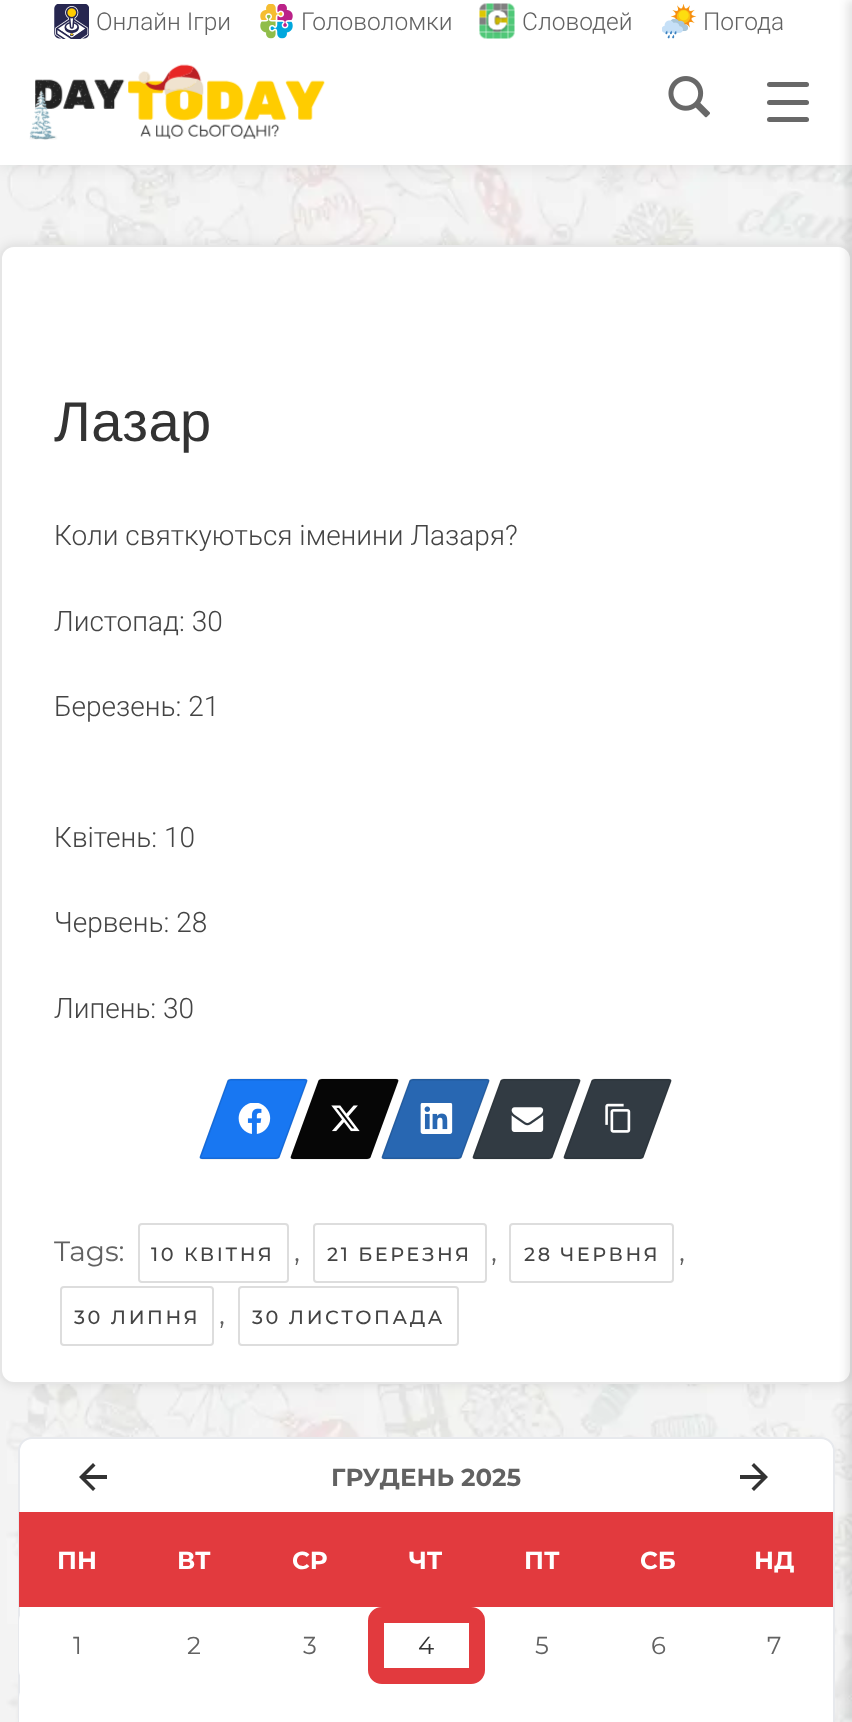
async function draw(canvas) {
  canvas.width = 852;
  canvas.height = 1722;
  const ctx = canvas.getContext('2d');
  ctx.miterLimit = 4;
  ctx.fontKerning = 'normal';
  function label(s, x, y, font, color) {
    ctx.font = font;
    ctx.fillStyle = color;
    ctx.fillText(s, x, y);
  }
  function rect(x, y, w, h, color) {
    ctx.fillStyle = color;
    ctx.fillRect(x, y, w, h);
  }
  function roundedRect(x, y, w, h, r, color) {
    ctx.fillStyle = color;
    ctx.beginPath();
    ctx.roundRect(x, y, w, h, r);
    ctx.fill();
  }
  async function image(src, x, y, w, h) {
    const img = new Image();
    img.src = src;
    await img.decode();
    ctx.drawImage(img, x, y, w, h);
  }
  let path;

  rect(0, 0, 852, 1722, '#f3f3f3');
  await image('assets/img1.png', 6, 165, 846, 1557);
  rect(0, 42, 852, 123, '#fff');
  ctx.save();
  path = new Path2D('M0 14H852V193H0ZM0 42H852V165H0Z');
  ctx.clip(path, 'evenodd');
  ctx.fillStyle = '#0000001a';
  ctx.filter = 'blur(9px)';
  ctx.beginPath();
  ctx.rect(0, 42, 852, 123);
  ctx.fill();
  ctx.filter = 'none';
  ctx.restore();
  rect(0, 0, 852, 42, '#fff');
  await image('assets/img2.png', 54, 4, 35, 35);
  label('Онлайн Ігри', 96, 30, '300 24.5px Roboto', '#626262');
  await image('assets/img3.png', 260, 4, 33, 35);
  label('Головоломки', 301, 30, '300 24.5px Roboto', '#626262');
  await image('assets/img4.png', 479, 3, 36, 36);
  label('Словодей', 522, 30, '300 24.5px Roboto', '#626262');
  await image('assets/img5.png', 662, 4, 35, 35);
  label('Погода', 703, 30, '300 24.5px Roboto', '#626262');
  await image('assets/img6.png', 29, 64, 296, 76);
  await image('assets/img7.png', 668, 76, 42, 42);
  roundedRect(767, 100, 42, 5, 2.5, '#686868');
  roundedRect(767, 82, 42, 5, 2.5, '#686868');
  roundedRect(767, 117, 42, 5, 2.5, '#686868');
  ctx.fillStyle = '#0000001a';
  ctx.filter = 'blur(6px)';
  ctx.beginPath();
  ctx.roundRect(0, 245, 852, 1139, 14);
  ctx.fill();
  ctx.filter = 'none';
  ctx.fillStyle = '#fff';
  ctx.beginPath();
  ctx.roundRect(1, 246, 850, 1137, 13);
  ctx.fill();
  ctx.strokeStyle = '#e6e6e6';
  ctx.lineWidth = 2;
  ctx.stroke();
  ctx.beginPath();
  ctx.roundRect(19, 1438, 815, 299, 13);
  ctx.fill();
  ctx.strokeStyle = '#e7e9ed';
  ctx.stroke();
  rect(19, 1512, 814, 95, '#e23a3e');
  ctx.fillStyle = '#0000001a';
  ctx.filter = 'blur(4.5px)';
  ctx.beginPath();
  ctx.rect(847, 0, 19, 1722);
  ctx.fill();
  ctx.filter = 'none';
  ctx.letterSpacing = '0.5px';
  label('Лазар', 54, 441, '56px Arimo', '#333');
  ctx.letterSpacing = '0px';
  label('Коли святкуються іменини Лазаря?', 54, 545, '300 28px Roboto', '#444');
  label('Листопад: 30', 54, 631, '300 28px Roboto', '#444');
  label('Березень: 21', 54, 716, '300 28px Roboto', '#444');
  label('Квітень: 10', 54, 847, '300 28px Roboto', '#444');
  label('Червень: 28', 54, 932, '300 28px Roboto', '#444');
  label('Липень: 30', 54, 1018, '300 28px Roboto', '#444');
  ctx.fillStyle = '#1877f2';
  path = new Path2D('M231 1079H305C307 1079 308 1080 307 1082L280 1156C280 1158 278 1159 276 1159H202C200 1159 199 1158 200 1156L227 1082C227 1080 229 1079 231 1079Z');
  ctx.fill(path);
  path = new Path2D('M231 1079.5H304.5C306 1079.5 307 1080.5 306.5 1082L279.5 1155.5C279 1157 277.5 1158.5 276 1158.5H202.5C201 1158.5 200 1157 201 1155.5L227.5 1082C228 1080.5 229.5 1079.5 231 1079.5Z');
  ctx.strokeStyle = '#0000001a';
  ctx.lineWidth = 1.8;
  ctx.stroke(path);
  await image('assets/img8.png', 238, 1103, 33, 31);
  ctx.fillStyle = '#060606';
  path = new Path2D('M322 1079H396C398 1079 399 1080 398 1082L371 1156C371 1158 369 1159 367 1159H293C291 1159 290 1158 291 1156L318 1082C318 1080 320 1079 322 1079Z');
  ctx.fill(path);
  path = new Path2D('M322 1079.5H395.5C397 1079.5 398 1080.5 397.5 1082L370.5 1155.5C370 1157 368.5 1158.5 367 1158.5H293.5C292 1158.5 291 1157 292 1155.5L318.5 1082C319 1080.5 320.5 1079.5 322 1079.5Z');
  ctx.stroke(path);
  await image('assets/img9.png', 331, 1105, 29, 27);
  ctx.fillStyle = '#2867b2';
  path = new Path2D('M413 1079H487C489 1079 490 1080 489 1082L462 1156C462 1158 460 1159 458 1159H384C382 1159 381 1158 382 1156L409 1082C409 1080 411 1079 413 1079Z');
  ctx.fill(path);
  path = new Path2D('M413 1079.5H486.5C488 1079.5 489 1080.5 488.5 1082L461.5 1155.5C461 1157 459.5 1158.5 458 1158.5H384.5C383 1158.5 382 1157 383 1155.5L409.5 1082C410 1080.5 411.5 1079.5 413 1079.5Z');
  ctx.stroke(path);
  await image('assets/img10.png', 420, 1103, 33, 31);
  ctx.fillStyle = '#323b43';
  path = new Path2D('M504 1079H578C580 1079 581 1080 580 1082L553 1156C553 1158 551 1159 549 1159H475C473 1159 472 1158 473 1156L500 1082C500 1080 502 1079 504 1079Z');
  ctx.fill(path);
  path = new Path2D('M504 1079.5H577.5C579 1079.5 580 1080.5 579.5 1082L552.5 1155.5C552 1157 550.5 1158.5 549 1158.5H475.5C474 1158.5 473 1157 474 1155.5L500.5 1082C501 1080.5 502.5 1079.5 504 1079.5Z');
  ctx.stroke(path);
  await image('assets/img11.png', 511, 1107, 33, 25);
  path = new Path2D('M595 1079H669C671 1079 672 1080 671 1082L644 1156C644 1158 642 1159 640 1159H566C564 1159 563 1158 564 1156L591 1082C591 1080 593 1079 595 1079Z');
  ctx.fill(path);
  path = new Path2D('M595 1079.5H668.5C670 1079.5 671 1080.5 670.5 1082L643.5 1155.5C643 1157 641.5 1158.5 640 1158.5H566.5C565 1158.5 564 1157 565 1155.5L591.5 1082C592 1080.5 593.5 1079.5 595 1079.5Z');
  ctx.stroke(path);
  await image('assets/img12.png', 605, 1103, 26, 30);
  label('Tags:', 54, 1261, '28px Montserrat', '#626262');
  ctx.beginPath();
  ctx.roundRect(139, 1224, 149, 58, 3);
  ctx.strokeStyle = '#ddd';
  ctx.lineWidth = 2;
  ctx.stroke();
  ctx.letterSpacing = '2.6px';
  label('10 КВІТНЯ', 151, 1261, '500 19.25px Montserrat', '#444');
  ctx.letterSpacing = '0px';
  label(',', 294, 1261, '28px Montserrat', '#626262');
  ctx.beginPath();
  ctx.roundRect(314, 1224, 172, 58, 3);
  ctx.stroke();
  ctx.letterSpacing = '2.6px';
  label('21 БЕРЕЗНЯ', 327, 1261, '500 19.25px Montserrat', '#444');
  ctx.letterSpacing = '0px';
  label(',', 491, 1261, '28px Montserrat', '#626262');
  ctx.beginPath();
  ctx.roundRect(510, 1224, 163, 58, 3);
  ctx.stroke();
  ctx.letterSpacing = '2.6px';
  label('28 ЧЕРВНЯ', 524, 1261, '500 19.25px Montserrat', '#444');
  ctx.letterSpacing = '0px';
  label(',', 679, 1261, '28px Montserrat', '#626262');
  ctx.beginPath();
  ctx.roundRect(61, 1287, 152, 58, 3);
  ctx.stroke();
  ctx.letterSpacing = '2.6px';
  label('30 ЛИПНЯ', 74, 1324, '500 19.25px Montserrat', '#444');
  ctx.letterSpacing = '0px';
  label(',', 219, 1324, '28px Montserrat', '#626262');
  ctx.beginPath();
  ctx.roundRect(239, 1287, 219, 58, 3);
  ctx.stroke();
  ctx.letterSpacing = '2.6px';
  label('30 ЛИСТОПАДА', 252, 1324, '500 19.25px Montserrat', '#444');
  ctx.fillStyle = '#333';
  path = new Path2D('M107 1475V1479H86L95.5 1488.5L93 1491L79 1477L93 1463L95.5 1465.5L86 1475Z');
  ctx.fill(path);
  ctx.letterSpacing = '0px';
  label('ГРУДЕНЬ 2025', 331, 1486, 'bold 24.5px Montserrat', '#626262');
  ctx.fillStyle = '#333';
  path = new Path2D('M740 1475V1479H761L751.5 1488.5L754 1491L768 1477L754 1463L751.5 1465.5L761 1475Z');
  ctx.fill(path);
  label('ПН', 57, 1569, 'bold 24.5px Montserrat', '#fff');
  label('ВТ', 177, 1569, 'bold 24.5px Montserrat', '#fff');
  label('СР', 292, 1569, 'bold 24.5px Montserrat', '#fff');
  label('ЧТ', 409, 1569, 'bold 24.5px Montserrat', '#fff');
  label('ПТ', 524, 1569, 'bold 24.5px Montserrat', '#fff');
  label('СБ', 640, 1569, 'bold 24.5px Montserrat', '#fff');
  label('НД', 754, 1569, 'bold 24.5px Montserrat', '#fff');
  roundedRect(19, 1607, 116, 77, 14, '#fff');
  label('1', 73, 1654, '24.5px Montserrat', '#626262');
  label('2', 187, 1654, '24.5px Montserrat', '#626262');
  label('3', 303, 1654, '24.5px Montserrat', '#626262');
  ctx.beginPath();
  ctx.roundRect(376, 1615, 101, 61, 6);
  ctx.strokeStyle = '#e23a3e';
  ctx.lineWidth = 16;
  ctx.stroke();
  label('4', 418, 1654, '24.5px Montserrat', '#333');
  label('5', 535, 1654, '24.5px Montserrat', '#626262');
  label('6', 651, 1654, '24.5px Montserrat', '#626262');
  label('7', 767, 1654, '24.5px Montserrat', '#626262');
  roundedRect(19, 1684, 116, 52, 14, '#fff');
}

draw(document.querySelector('canvas'));
